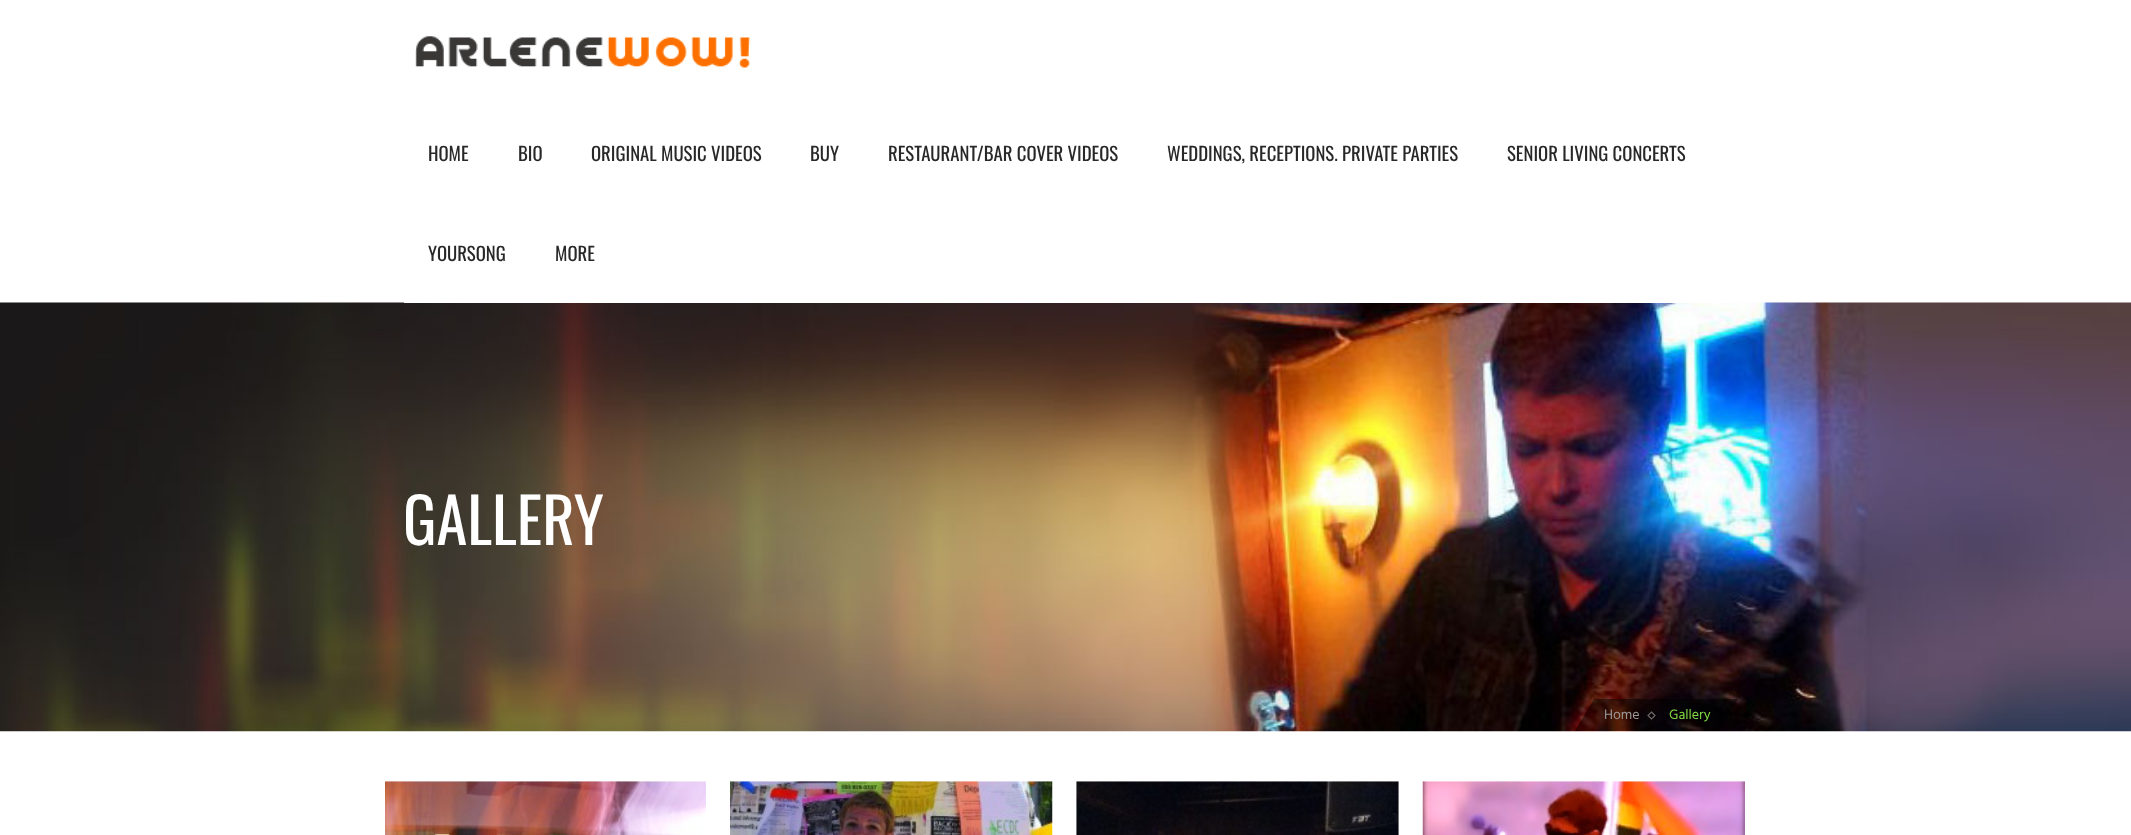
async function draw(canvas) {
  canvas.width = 2131;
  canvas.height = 835;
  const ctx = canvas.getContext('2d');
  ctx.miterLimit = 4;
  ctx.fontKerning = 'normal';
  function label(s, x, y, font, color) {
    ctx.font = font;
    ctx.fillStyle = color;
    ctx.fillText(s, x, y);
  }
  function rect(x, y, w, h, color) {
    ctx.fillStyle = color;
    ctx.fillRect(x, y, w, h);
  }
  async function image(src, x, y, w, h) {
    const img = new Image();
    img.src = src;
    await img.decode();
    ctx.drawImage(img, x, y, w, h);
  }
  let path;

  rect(0, 0, 2131, 835, '#fff');
  await image('assets/img1.png', 415, 36, 336, 32);
  await image('assets/img2.png', 0, 302, 2131, 430);
  rect(404, 302, 1325, 1, '#fff');
  label('HOME', 428, 161, '18.75px Oswald', '#282828');
  label('BIO', 518, 161, '18.75px Oswald', '#282828');
  label('ORIGINAL MUSIC VIDEOS', 591, 161, '18.75px Oswald', '#282828');
  label('BUY', 810, 161, '18.75px Oswald', '#282828');
  label('RESTAURANT/BAR COVER VIDEOS', 888, 161, '18.75px Oswald', '#282828');
  label('WEDDINGS, RECEPTIONS. PRIVATE PARTIES', 1167, 161, '18.75px Oswald', '#282828');
  label('SENIOR LIVING CONCERTS', 1507, 161, '18.75px Oswald', '#282828');
  label('YOURSONG', 428, 261, '18.75px Oswald', '#282828');
  label('MORE', 555, 261, '18.75px Oswald', '#282828');
  label('GALLERY', 403, 545, '62.5px Oswald', '#fff');
  ctx.fillStyle = '#00000080';
  path = new Path2D('M1594 699H1738L1719 731H1575Z');
  ctx.fill(path);
  label('Home', 1604, 719, '14px Hind', '#999');
  path = new Path2D('M1651.5 712L1655 715.5L1651.5 719L1648 715.5Z');
  ctx.strokeStyle = '#6e6969';
  ctx.lineWidth = 1.2;
  ctx.stroke(path);
  label('Gallery', 1669, 719, '14px Hind', '#81d742');
  await image('assets/img3.png', 385, 781, 321, 54);
  await image('assets/img4.png', 730, 781, 323, 54);
  await image('assets/img5.png', 1076, 781, 323, 54);
  await image('assets/img6.png', 1422, 781, 323, 54);
}

draw(document.querySelector('canvas'));
